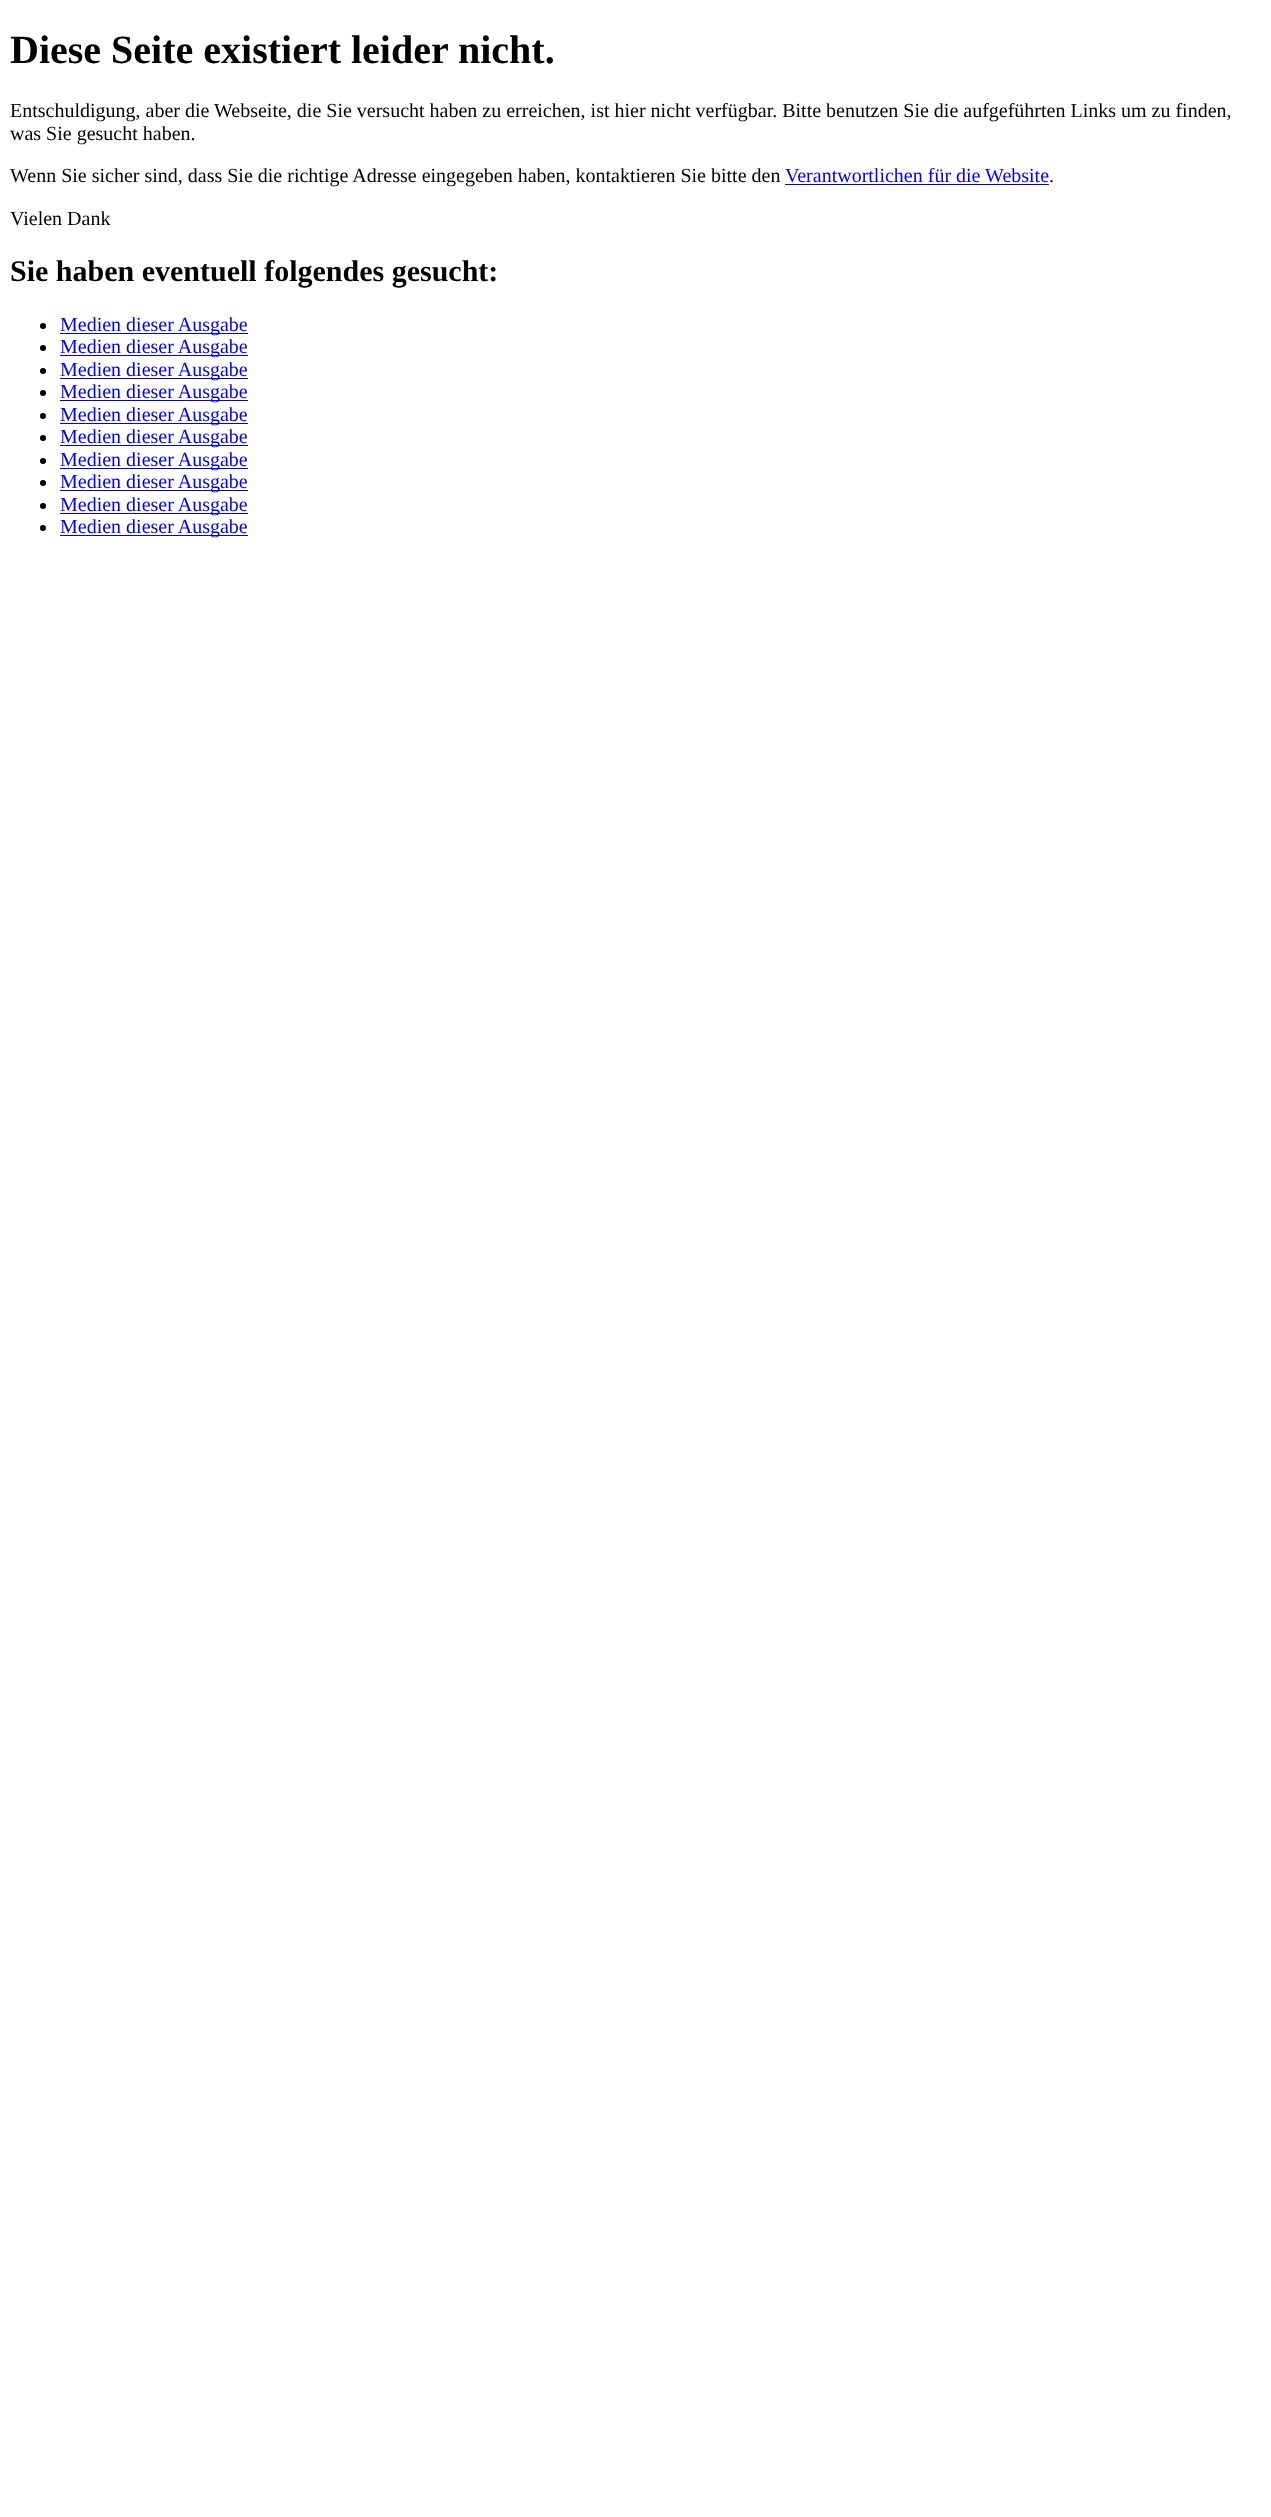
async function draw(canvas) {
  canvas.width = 1271;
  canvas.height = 2517;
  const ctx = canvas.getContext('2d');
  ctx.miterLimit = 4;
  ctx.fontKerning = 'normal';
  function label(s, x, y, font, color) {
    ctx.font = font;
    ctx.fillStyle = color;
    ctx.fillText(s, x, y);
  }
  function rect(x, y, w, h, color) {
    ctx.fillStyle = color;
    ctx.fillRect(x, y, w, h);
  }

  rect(0, 0, 1271, 2517, '#fff');
  label('Diese Seite existiert leider nicht.', 10, 63, 'bold 40px Liberation Serif', '#000');
  label('Entschuldigung, aber die Webseite, die Sie versucht haben zu erreichen, ist hier nicht verfügbar. Bitte benutzen Sie die aufgeführten Links um zu finden,', 10, 117, '20px Liberation Serif', '#000');
  label('was Sie gesucht haben.', 10, 140, '20px Liberation Serif', '#000');
  label('Wenn Sie sicher sind, dass Sie die richtige Adresse eingegeben haben, kontaktieren Sie bitte den', 10, 182, '20px Liberation Serif', '#000');
  label('Verantwortlichen für die Website', 785, 182, '20px Liberation Serif', '#00e');
  rect(785, 184, 264, 1, '#00e');
  label('.', 1049, 182, '20px Liberation Serif', '#000');
  label('Vielen Dank', 10, 225, '20px Liberation Serif', '#000');
  label('Sie haben eventuell folgendes gesucht:', 10, 281, 'bold 30px Liberation Serif', '#000');
  ctx.beginPath();
  ctx.arc(43, 326, 3, 0, 2 * Math.PI);
  ctx.fill();
  rect(60, 333, 188, 1, '#00e');
  label('Medien dieser Ausgabe', 60, 331, '20px Liberation Serif', '#00e');
  ctx.fillStyle = '#000';
  ctx.beginPath();
  ctx.arc(43, 348, 3, 0, 2 * Math.PI);
  ctx.fill();
  rect(60, 355, 188, 1, '#00e');
  label('Medien dieser Ausgabe', 60, 353, '20px Liberation Serif', '#00e');
  ctx.fillStyle = '#000';
  ctx.beginPath();
  ctx.arc(43, 371, 3, 0, 2 * Math.PI);
  ctx.fill();
  rect(60, 378, 188, 1, '#00e');
  label('Medien dieser Ausgabe', 60, 376, '20px Liberation Serif', '#00e');
  ctx.fillStyle = '#000';
  ctx.beginPath();
  ctx.arc(43, 393, 3, 0, 2 * Math.PI);
  ctx.fill();
  rect(60, 400, 188, 1, '#00e');
  label('Medien dieser Ausgabe', 60, 398, '20px Liberation Serif', '#00e');
  ctx.fillStyle = '#000';
  ctx.beginPath();
  ctx.arc(43, 416, 3, 0, 2 * Math.PI);
  ctx.fill();
  rect(60, 423, 188, 1, '#00e');
  label('Medien dieser Ausgabe', 60, 421, '20px Liberation Serif', '#00e');
  ctx.fillStyle = '#000';
  ctx.beginPath();
  ctx.arc(43, 438, 3, 0, 2 * Math.PI);
  ctx.fill();
  rect(60, 445, 188, 1, '#00e');
  label('Medien dieser Ausgabe', 60, 443, '20px Liberation Serif', '#00e');
  ctx.fillStyle = '#000';
  ctx.beginPath();
  ctx.arc(43, 461, 3, 0, 2 * Math.PI);
  ctx.fill();
  rect(60, 468, 188, 1, '#00e');
  label('Medien dieser Ausgabe', 60, 466, '20px Liberation Serif', '#00e');
  ctx.fillStyle = '#000';
  ctx.beginPath();
  ctx.arc(43, 483, 3, 0, 2 * Math.PI);
  ctx.fill();
  rect(60, 490, 188, 1, '#00e');
  label('Medien dieser Ausgabe', 60, 488, '20px Liberation Serif', '#00e');
  ctx.fillStyle = '#000';
  ctx.beginPath();
  ctx.arc(43, 506, 3, 0, 2 * Math.PI);
  ctx.fill();
  rect(60, 513, 188, 1, '#00e');
  label('Medien dieser Ausgabe', 60, 511, '20px Liberation Serif', '#00e');
  ctx.fillStyle = '#000';
  ctx.beginPath();
  ctx.arc(43, 528, 3, 0, 2 * Math.PI);
  ctx.fill();
  rect(60, 535, 188, 1, '#00e');
  label('Medien dieser Ausgabe', 60, 533, '20px Liberation Serif', '#00e');
}

draw(document.querySelector('canvas'));
